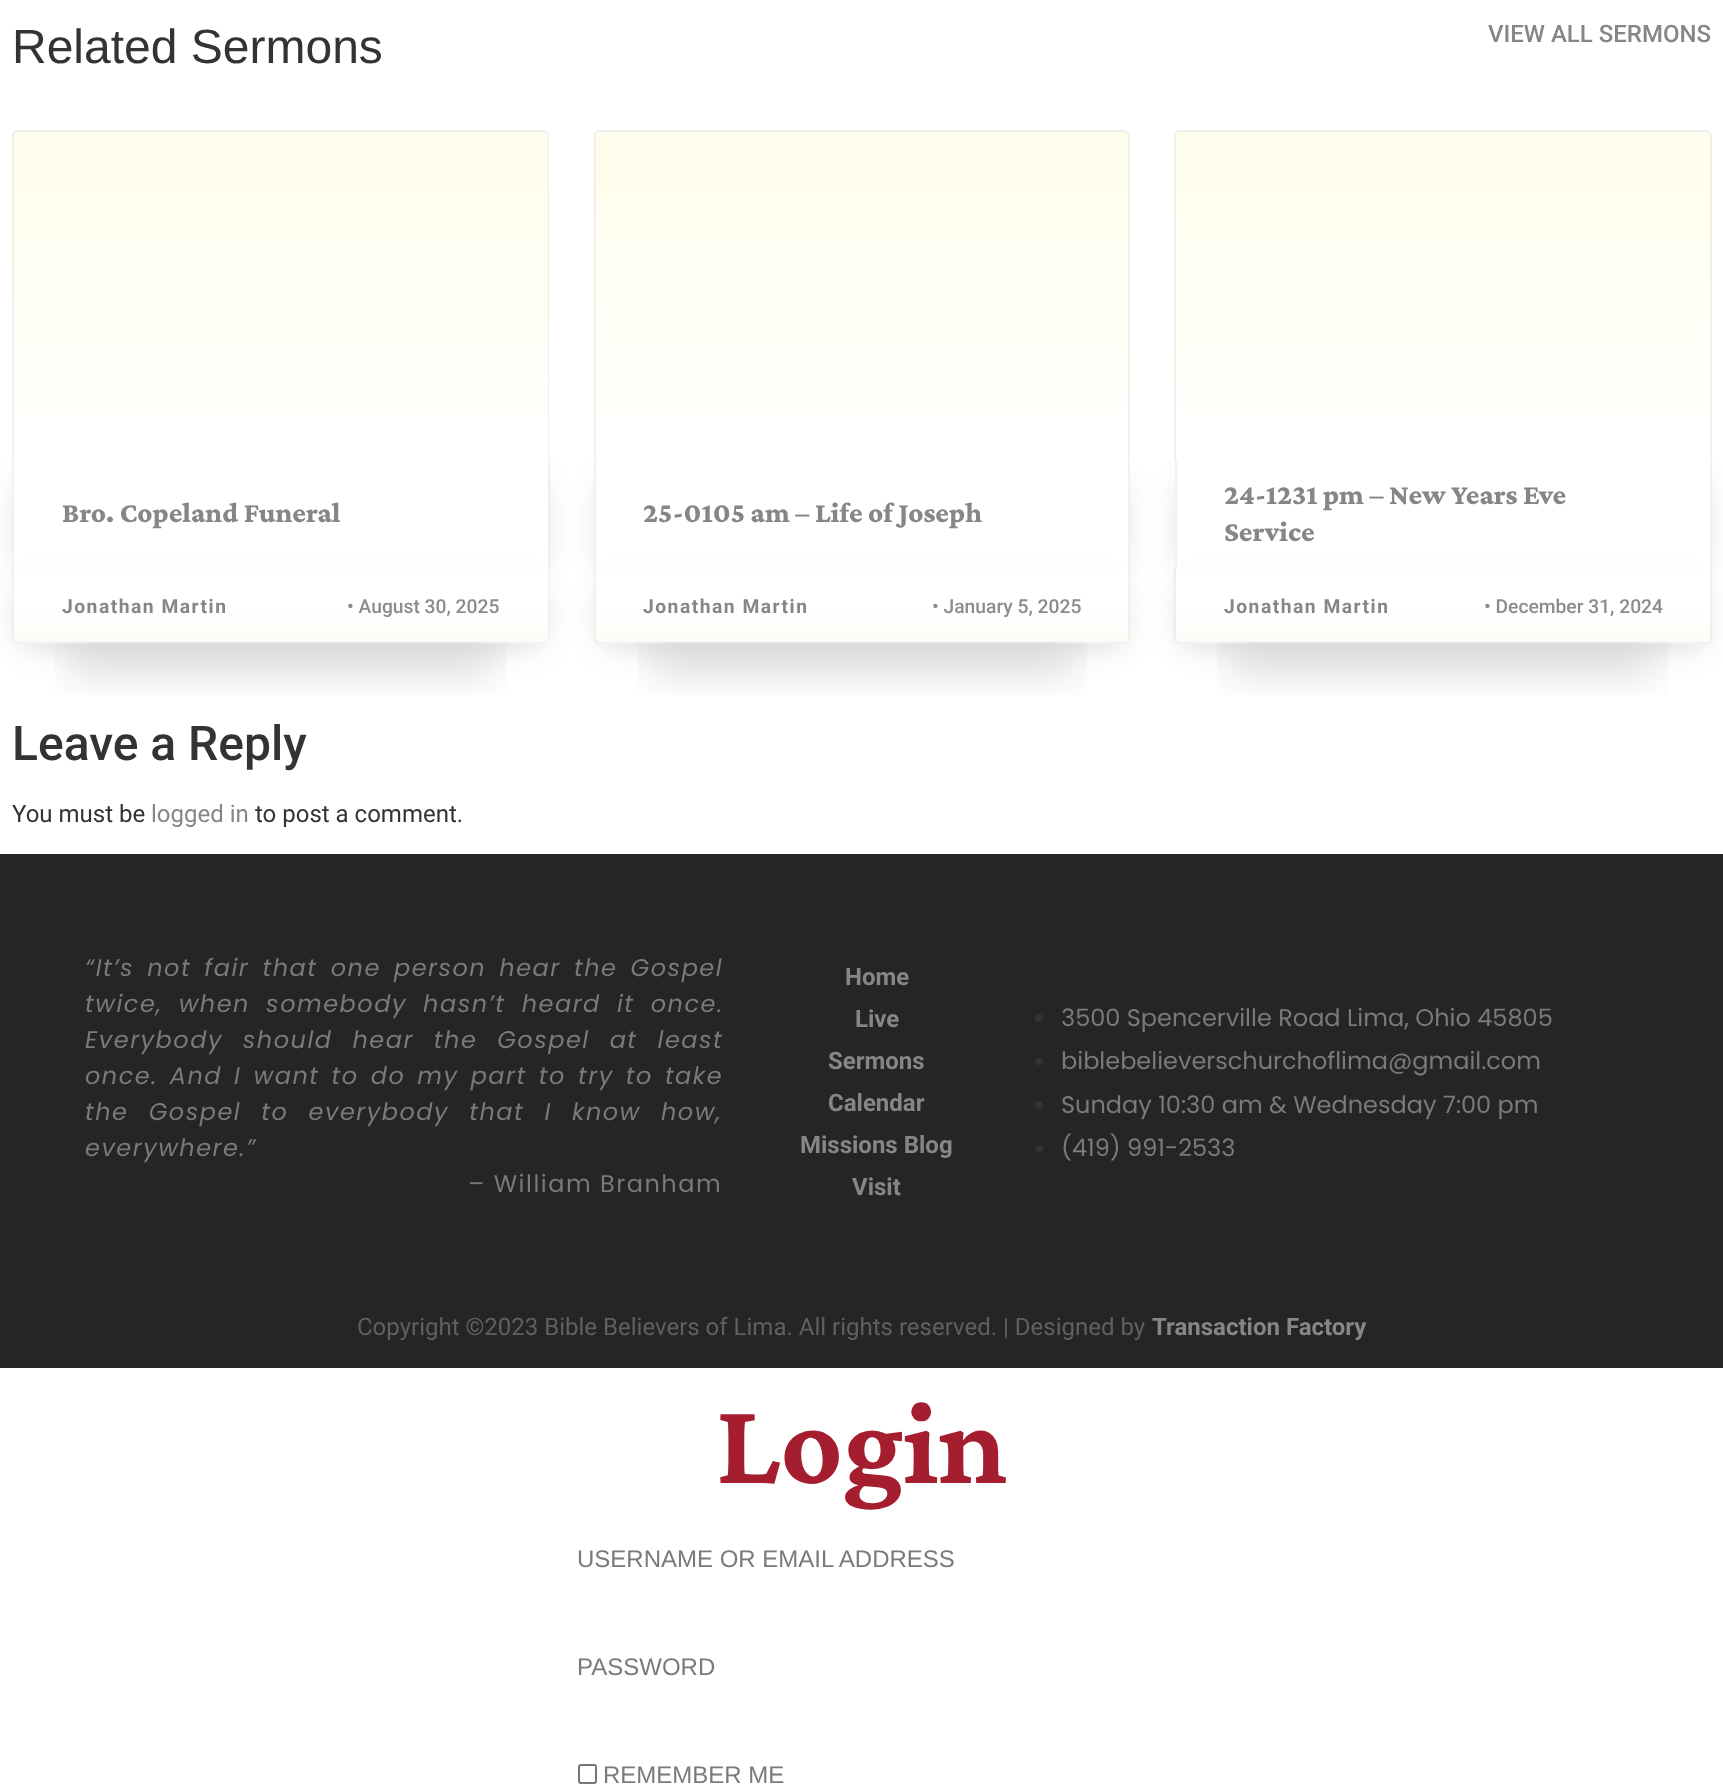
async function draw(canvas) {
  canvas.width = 1723;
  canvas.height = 1784;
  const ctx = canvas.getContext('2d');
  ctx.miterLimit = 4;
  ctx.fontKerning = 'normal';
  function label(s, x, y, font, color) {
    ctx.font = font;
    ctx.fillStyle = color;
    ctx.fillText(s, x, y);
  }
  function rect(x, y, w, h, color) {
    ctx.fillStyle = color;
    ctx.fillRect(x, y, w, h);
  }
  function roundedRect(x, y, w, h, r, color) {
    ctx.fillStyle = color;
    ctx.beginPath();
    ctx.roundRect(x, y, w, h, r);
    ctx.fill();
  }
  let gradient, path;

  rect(0, 0, 1723, 1784, '#fff');
  label('Related Sermons', 12, 63, '48px Liberation Sans', '#333');
  label('VIEW ALL SERMONS', 1488, 42, '500 24px Roboto', '#868686');
  ctx.fillStyle = '#0000002e';
  ctx.filter = 'blur(16.5px)';
  ctx.beginPath();
  ctx.rect(23, 482, 516, 87);
  ctx.fill();
  ctx.filter = 'none';
  ctx.save();
  ctx.beginPath();
  ctx.roundRect(12, 131, 537, 330, [5, 6, 0, 0]);
  ctx.clip();
  gradient = ctx.createLinearGradient(281, 132, 281, 461);
  gradient.addColorStop(0.15, '#fffeee');
  gradient.addColorStop(1, '#fff');
  ctx.fillStyle = gradient;
  ctx.fillRect(12, 132, 537, 329);
  ctx.restore();
  ctx.fillStyle = '#d2cdcb47';
  path = new Path2D('M16 130H543C546 130 549 133 549 136V460H12V135C12 133 14 130 16 130ZM16 132H543C545 132 548 134 548 136V460H14V135C14 133 15 132 16 132Z');
  ctx.fill(path, 'evenodd');
  rect(14, 461, 535, 108, '#fff');
  rect(548, 461, 2, 108, '#d2cdcb47');
  rect(12, 461, 2, 108, '#f2f1f0');
  label('Bro. Copeland Funeral', 62, 522, '800 28.75px Crimson Pro', '#868686');
  ctx.fillStyle = '#0000002e';
  ctx.filter = 'blur(16.5px)';
  ctx.beginPath();
  ctx.rect(23, 590, 516, 54);
  ctx.fill();
  ctx.filter = 'none';
  ctx.save();
  ctx.beginPath();
  ctx.roundRect(12, 569, 537, 75, [0, 0, 5, 5]);
  ctx.clip();
  gradient = ctx.createLinearGradient(281, 569, 281, 642);
  gradient.addColorStop(0.51, '#fff');
  gradient.addColorStop(1, '#fcfcf7');
  ctx.fillStyle = gradient;
  ctx.fillRect(12, 569, 537, 73);
  gradient = ctx.createLinearGradient(281, 642, 281, 716);
  gradient.addColorStop(0.51, '#fff');
  gradient.addColorStop(1, '#fcfcf7');
  ctx.fillStyle = gradient;
  ctx.fillRect(12, 642, 537, 2);
  ctx.restore();
  ctx.fillStyle = '#d2cdcb47';
  path = new Path2D('M12 568H549V639C549 641 547 644 544 644H16C14 644 12 641 12 639ZM14 568H548V639C548 641 546 642 544 642H16C15 642 14 641 14 639Z');
  ctx.fill(path, 'evenodd');
  ctx.save();
  ctx.beginPath();
  ctx.rect(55, 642, 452, 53);
  ctx.clip();
  ctx.fillStyle = '#00000080';
  ctx.filter = 'blur(21px)';
  ctx.beginPath();
  ctx.rect(68, 657, 426, 8);
  ctx.fill();
  ctx.filter = 'none';
  ctx.restore();
  ctx.letterSpacing = '1.5px';
  label('Jonathan Martin', 62, 613, 'bold 19.25px Roboto', '#868686');
  ctx.letterSpacing = '0px';
  label('• August 30, 2025', 347, 613, '500 19.25px Roboto', '#8e8b8f');
  ctx.fillStyle = '#0000002e';
  ctx.filter = 'blur(16.5px)';
  ctx.beginPath();
  ctx.rect(605, 482, 514, 87);
  ctx.fill();
  ctx.filter = 'none';
  ctx.save();
  ctx.beginPath();
  ctx.roundRect(594, 131, 536, 330, [5, 6, 0, 0]);
  ctx.clip();
  gradient = ctx.createLinearGradient(862, 132, 862, 461);
  gradient.addColorStop(0.15, '#fffeee');
  gradient.addColorStop(1, '#fff');
  ctx.fillStyle = gradient;
  ctx.fillRect(594, 132, 536, 329);
  ctx.restore();
  ctx.fillStyle = '#d2cdcb47';
  path = new Path2D('M598 130H1124C1127 130 1130 133 1130 136V460H594V135C594 133 596 130 598 130ZM598 132H1124C1126 132 1128 134 1128 136V460H596V135C596 133 597 132 598 132Z');
  ctx.fill(path, 'evenodd');
  rect(596, 461, 532, 108, '#fff');
  rect(1128, 461, 2, 108, '#f2f1f0');
  rect(594, 461, 2, 108, '#f2f1f0');
  label('25-0105 am – Life of Joseph', 643, 522, '800 28.75px Crimson Pro', '#868686');
  ctx.fillStyle = '#0000002e';
  ctx.filter = 'blur(16.5px)';
  ctx.beginPath();
  ctx.rect(605, 590, 514, 54);
  ctx.fill();
  ctx.filter = 'none';
  ctx.save();
  ctx.beginPath();
  ctx.roundRect(594, 569, 536, 75, [0, 0, 5, 5]);
  ctx.clip();
  gradient = ctx.createLinearGradient(862, 569, 862, 642);
  gradient.addColorStop(0.51, '#fff');
  gradient.addColorStop(1, '#fcfcf7');
  ctx.fillStyle = gradient;
  ctx.fillRect(594, 569, 536, 73);
  gradient = ctx.createLinearGradient(862, 642, 862, 716);
  gradient.addColorStop(0.51, '#fff');
  gradient.addColorStop(1, '#fcfcf7');
  ctx.fillStyle = gradient;
  ctx.fillRect(594, 642, 536, 2);
  ctx.restore();
  ctx.fillStyle = '#d2cdcb47';
  path = new Path2D('M594 568H1130V639C1130 641 1127 644 1125 644H598C596 644 594 641 594 639ZM596 568H1128V639C1128 641 1127 642 1125 642H598C597 642 596 641 596 639Z');
  ctx.fill(path, 'evenodd');
  ctx.save();
  ctx.beginPath();
  ctx.rect(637, 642, 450, 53);
  ctx.clip();
  ctx.fillStyle = '#00000080';
  ctx.filter = 'blur(21px)';
  ctx.beginPath();
  ctx.rect(650, 657, 424, 8);
  ctx.fill();
  ctx.filter = 'none';
  ctx.restore();
  ctx.letterSpacing = '1.5px';
  label('Jonathan Martin', 643, 613, 'bold 19.25px Roboto', '#868686');
  ctx.letterSpacing = '0px';
  label('• January 5, 2025', 932, 613, '500 19.25px Roboto', '#8e8b8f');
  ctx.fillStyle = '#0000002e';
  ctx.filter = 'blur(16.5px)';
  ctx.beginPath();
  ctx.rect(1185, 482, 516, 87);
  ctx.fill();
  ctx.filter = 'none';
  ctx.save();
  ctx.beginPath();
  ctx.roundRect(1175, 131, 537, 330, [5, 6, 0, 0]);
  ctx.clip();
  gradient = ctx.createLinearGradient(1443, 132, 1443, 461);
  gradient.addColorStop(0.15, '#fffeee');
  gradient.addColorStop(1, '#fff');
  ctx.fillStyle = gradient;
  ctx.fillRect(1175, 132, 537, 329);
  ctx.restore();
  ctx.fillStyle = '#d2cdcb47';
  path = new Path2D('M1179 130H1706C1709 130 1712 133 1712 136V460H1174V135C1174 133 1177 130 1179 130ZM1179 132H1706C1708 132 1710 134 1710 136V460H1176V135C1176 133 1177 132 1179 132Z');
  ctx.fill(path, 'evenodd');
  rect(1177, 461, 533, 108, '#fff');
  rect(1710, 461, 2, 108, '#f2f1f0');
  rect(1175, 461, 2, 108, '#f2f1f0');
  label('24-1231 pm – New Years Eve', 1224, 504, '800 28.75px Crimson Pro', '#868686');
  label('Service', 1224, 541, '800 28.75px Crimson Pro', '#868686');
  ctx.fillStyle = '#0000002e';
  ctx.filter = 'blur(16.5px)';
  ctx.beginPath();
  ctx.rect(1185, 590, 516, 54);
  ctx.fill();
  ctx.filter = 'none';
  ctx.save();
  ctx.beginPath();
  ctx.roundRect(1175, 569, 537, 75, [0, 0, 5, 5]);
  ctx.clip();
  gradient = ctx.createLinearGradient(1443, 569, 1443, 642);
  gradient.addColorStop(0.51, '#fff');
  gradient.addColorStop(1, '#fcfcf7');
  ctx.fillStyle = gradient;
  ctx.fillRect(1175, 569, 537, 73);
  gradient = ctx.createLinearGradient(1443, 642, 1443, 716);
  gradient.addColorStop(0.51, '#fff');
  gradient.addColorStop(1, '#fcfcf7');
  ctx.fillStyle = gradient;
  ctx.fillRect(1175, 642, 537, 2);
  ctx.restore();
  ctx.fillStyle = '#d2cdcb47';
  path = new Path2D('M1174 568H1712V639C1712 641 1709 644 1707 644H1179C1177 644 1174 641 1174 639ZM1176 568H1710V639C1710 641 1709 642 1707 642H1179C1177 642 1176 641 1176 639Z');
  ctx.fill(path, 'evenodd');
  ctx.save();
  ctx.beginPath();
  ctx.rect(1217, 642, 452, 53);
  ctx.clip();
  ctx.fillStyle = '#00000080';
  ctx.filter = 'blur(21px)';
  ctx.beginPath();
  ctx.rect(1230, 657, 426, 8);
  ctx.fill();
  ctx.filter = 'none';
  ctx.restore();
  ctx.letterSpacing = '1.5px';
  label('Jonathan Martin', 1224, 613, 'bold 19.25px Roboto', '#868686');
  ctx.letterSpacing = '0px';
  label('• December 31, 2024', 1484, 613, '500 19.25px Roboto', '#8e8b8f');
  label('Leave a Reply', 12, 760, '500 48px Roboto', '#333');
  label('You must be', 12, 822, '24px Roboto', '#333');
  label('logged in', 151, 822, '24px Roboto', '#868686');
  label('to post a comment.', 255, 822, '24px Roboto', '#333');
  rect(0, 854, 1723, 514, '#252525');
  ctx.letterSpacing = '1.5px';
  ctx.wordSpacing = '4.5px';
  label('“It’s not fair that one person hear the Gospel', 85, 976, 'italic 24px Poppins', '#7a7a7a');
  ctx.wordSpacing = '7.5px';
  label('twice, when somebody hasn’t heard it once.', 85, 1012, 'italic 24px Poppins', '#7a7a7a');
  ctx.wordSpacing = '11.25px';
  label('Everybody should hear the Gospel at least', 85, 1048, 'italic 24px Poppins', '#7a7a7a');
  ctx.wordSpacing = '3.4px';
  label('once. And I want to do my part to try to take', 85, 1084, 'italic 24px Poppins', '#7a7a7a');
  ctx.wordSpacing = '11.5px';
  label('the Gospel to everybody that I know how,', 85, 1120, 'italic 24px Poppins', '#7a7a7a');
  ctx.wordSpacing = '0px';
  label('everywhere.”', 85, 1156, 'italic 24px Poppins', '#7a7a7a');
  label('– William Branham', 468, 1192, '24px Poppins', '#7a7a7a');
  ctx.letterSpacing = '0px';
  label('Home', 845, 985, 'bold 24px Roboto', '#868686');
  label('Live', 855, 1027, 'bold 24px Roboto', '#868686');
  label('Sermons', 828, 1069, 'bold 24px Roboto', '#868686');
  label('Calendar', 828, 1111, 'bold 24px Roboto', '#868686');
  label('Missions Blog', 800, 1153, 'bold 24px Roboto', '#868686');
  label('Visit', 852, 1195, 'bold 24px Roboto', '#868686');
  ctx.fillStyle = '#333';
  ctx.beginPath();
  ctx.arc(1039, 1018, 4, 0, 2 * Math.PI);
  ctx.fill();
  label('3500 Spencerville Road Lima, Ohio 45805', 1061, 1026, '24px Poppins', '#7a7a7a');
  roundedRect(1035, 1058, 8, 7, 3.5, '#333');
  label('biblebelieverschurchoflima@gmail.com', 1061, 1069, '24px Poppins', '#7a7a7a');
  ctx.fillStyle = '#333';
  ctx.beginPath();
  ctx.arc(1039, 1105, 4, 0, 2 * Math.PI);
  ctx.fill();
  label('Sunday 10:30 am & Wednesday 7:00 pm', 1061, 1113, '24px Poppins', '#7a7a7a');
  roundedRect(1035, 1145, 8, 7, 3.5, '#333');
  label('(419) 991-2533', 1061, 1156, '24px Poppins', '#7a7a7a');
  label('Copyright ©2023 Bible Believers of Lima. All rights reserved. | Designed by', 357, 1335, '24px Roboto', '#606060');
  label('Transaction Factory', 1152, 1335, 'bold 24px Roboto', '#868686');
  label('Login', 716, 1483, 'bold 120px Crimson Pro', '#a51e2f');
  label('USERNAME OR EMAIL ADDRESS', 577, 1567, '24px Liberation Sans', '#7a7a7a');
  label('PASSWORD', 577, 1675, '24px Liberation Sans', '#7a7a7a');
  ctx.beginPath();
  ctx.roundRect(579, 1765, 17, 18, 2);
  ctx.strokeStyle = '#767676';
  ctx.lineWidth = 2;
  ctx.stroke();
  label('REMEMBER ME', 603, 1783, '24px Liberation Sans', '#7a7a7a');
}

draw(document.querySelector('canvas'));
